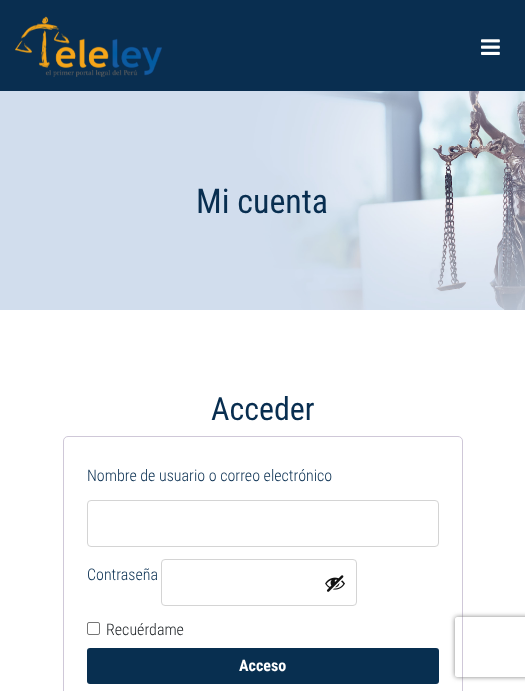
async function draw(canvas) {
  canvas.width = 525;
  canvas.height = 691;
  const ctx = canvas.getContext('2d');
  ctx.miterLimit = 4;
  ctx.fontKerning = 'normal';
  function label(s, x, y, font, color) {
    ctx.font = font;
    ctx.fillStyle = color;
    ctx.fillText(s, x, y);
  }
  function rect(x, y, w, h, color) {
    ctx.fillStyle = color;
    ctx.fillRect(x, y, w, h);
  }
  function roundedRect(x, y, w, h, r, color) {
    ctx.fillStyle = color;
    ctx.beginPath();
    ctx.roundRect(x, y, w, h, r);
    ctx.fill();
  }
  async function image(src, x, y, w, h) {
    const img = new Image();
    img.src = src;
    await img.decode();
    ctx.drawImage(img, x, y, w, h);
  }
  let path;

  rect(0, 0, 525, 691, '#fff');
  rect(0, 0, 525, 91, '#092e50');
  await image('assets/img1.png', 15, 16, 147, 61);
  await image('assets/img2.png', 481, 39, 19, 16);
  await image('assets/img3.png', 0, 91, 525, 219);
  label('Mi cuenta', 196, 213, '34px Roboto Condensed', '#082e50');
  label('Acceder', 211, 420, '32px Roboto Condensed', '#082e50');
  ctx.beginPath();
  ctx.roundRect(63.5, 436.5, 399, 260, 4.5);
  ctx.strokeStyle = '#cfc8d8';
  ctx.stroke();
  label('Nombre de usuario o correo electrónico', 87, 481, '300 16px Roboto Condensed', '#082e50');
  ctx.beginPath();
  ctx.roundRect(87.5, 500.5, 351, 46, 3.5);
  ctx.strokeStyle = '#d4d4d4';
  ctx.stroke();
  label('Contraseña', 87, 580, '300 16px Roboto Condensed', '#082e50');
  ctx.beginPath();
  ctx.roundRect(161.5, 559.5, 195, 46, 3.5);
  ctx.stroke();
  await image('assets/img4.png', 325, 575, 20, 17);
  ctx.beginPath();
  ctx.roundRect(87.5, 622.5, 12, 12, 1.5);
  ctx.strokeStyle = '#767676';
  ctx.stroke();
  label('Recuérdame', 106, 635, '300 16px Roboto Condensed', '#212529');
  roundedRect(87, 648, 352, 36, 3, '#082f50');
  label('Acceso', 239, 671, 'bold 16px Roboto Condensed', '#fff');
  ctx.save();
  path = new Path2D('M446 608H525V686H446ZM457 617H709C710 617 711 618 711 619V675C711 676 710 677 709 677H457C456 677 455 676 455 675V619C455 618 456 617 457 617Z');
  ctx.clip(path, 'evenodd');
  ctx.fillStyle = '#808080';
  ctx.filter = 'blur(2.5px)';
  ctx.beginPath();
  ctx.roundRect(455, 617, 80, 60, 2);
  ctx.fill();
  ctx.filter = 'none';
  ctx.restore();
}

draw(document.querySelector('canvas'));
